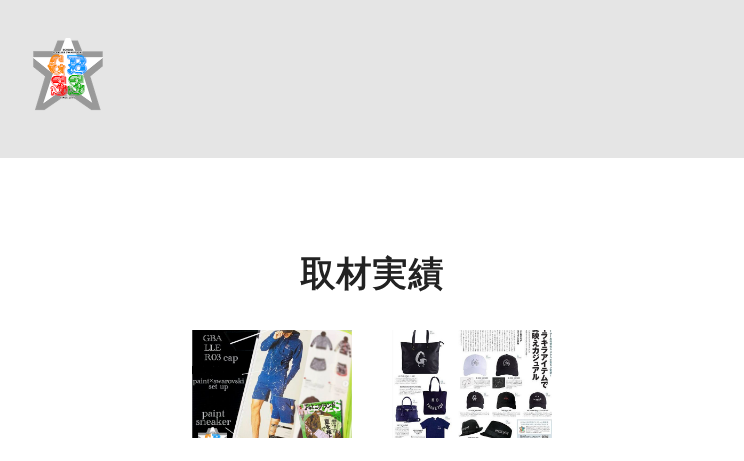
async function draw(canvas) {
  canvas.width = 744;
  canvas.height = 461;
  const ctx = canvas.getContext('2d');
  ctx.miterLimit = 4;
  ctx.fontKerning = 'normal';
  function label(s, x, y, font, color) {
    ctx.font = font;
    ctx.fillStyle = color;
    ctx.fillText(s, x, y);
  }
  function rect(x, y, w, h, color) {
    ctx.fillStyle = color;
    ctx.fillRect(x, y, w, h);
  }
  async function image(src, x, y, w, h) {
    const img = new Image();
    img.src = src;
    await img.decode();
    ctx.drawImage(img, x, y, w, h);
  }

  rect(0, 0, 744, 461, '#fff');
  rect(0, 0, 744, 158, '#e5e5e5');
  await image('assets/img1.png', 33, 38, 70, 73);
  ctx.letterSpacing = '1px';
  label('取材実績', 300, 286, 'bold 35px WenQuanYi Zen Hei', '#222');
  await image('assets/img2.png', 192, 330, 160, 108);
  await image('assets/img3.png', 392, 330, 160, 108);
}

draw(document.querySelector('canvas'));
